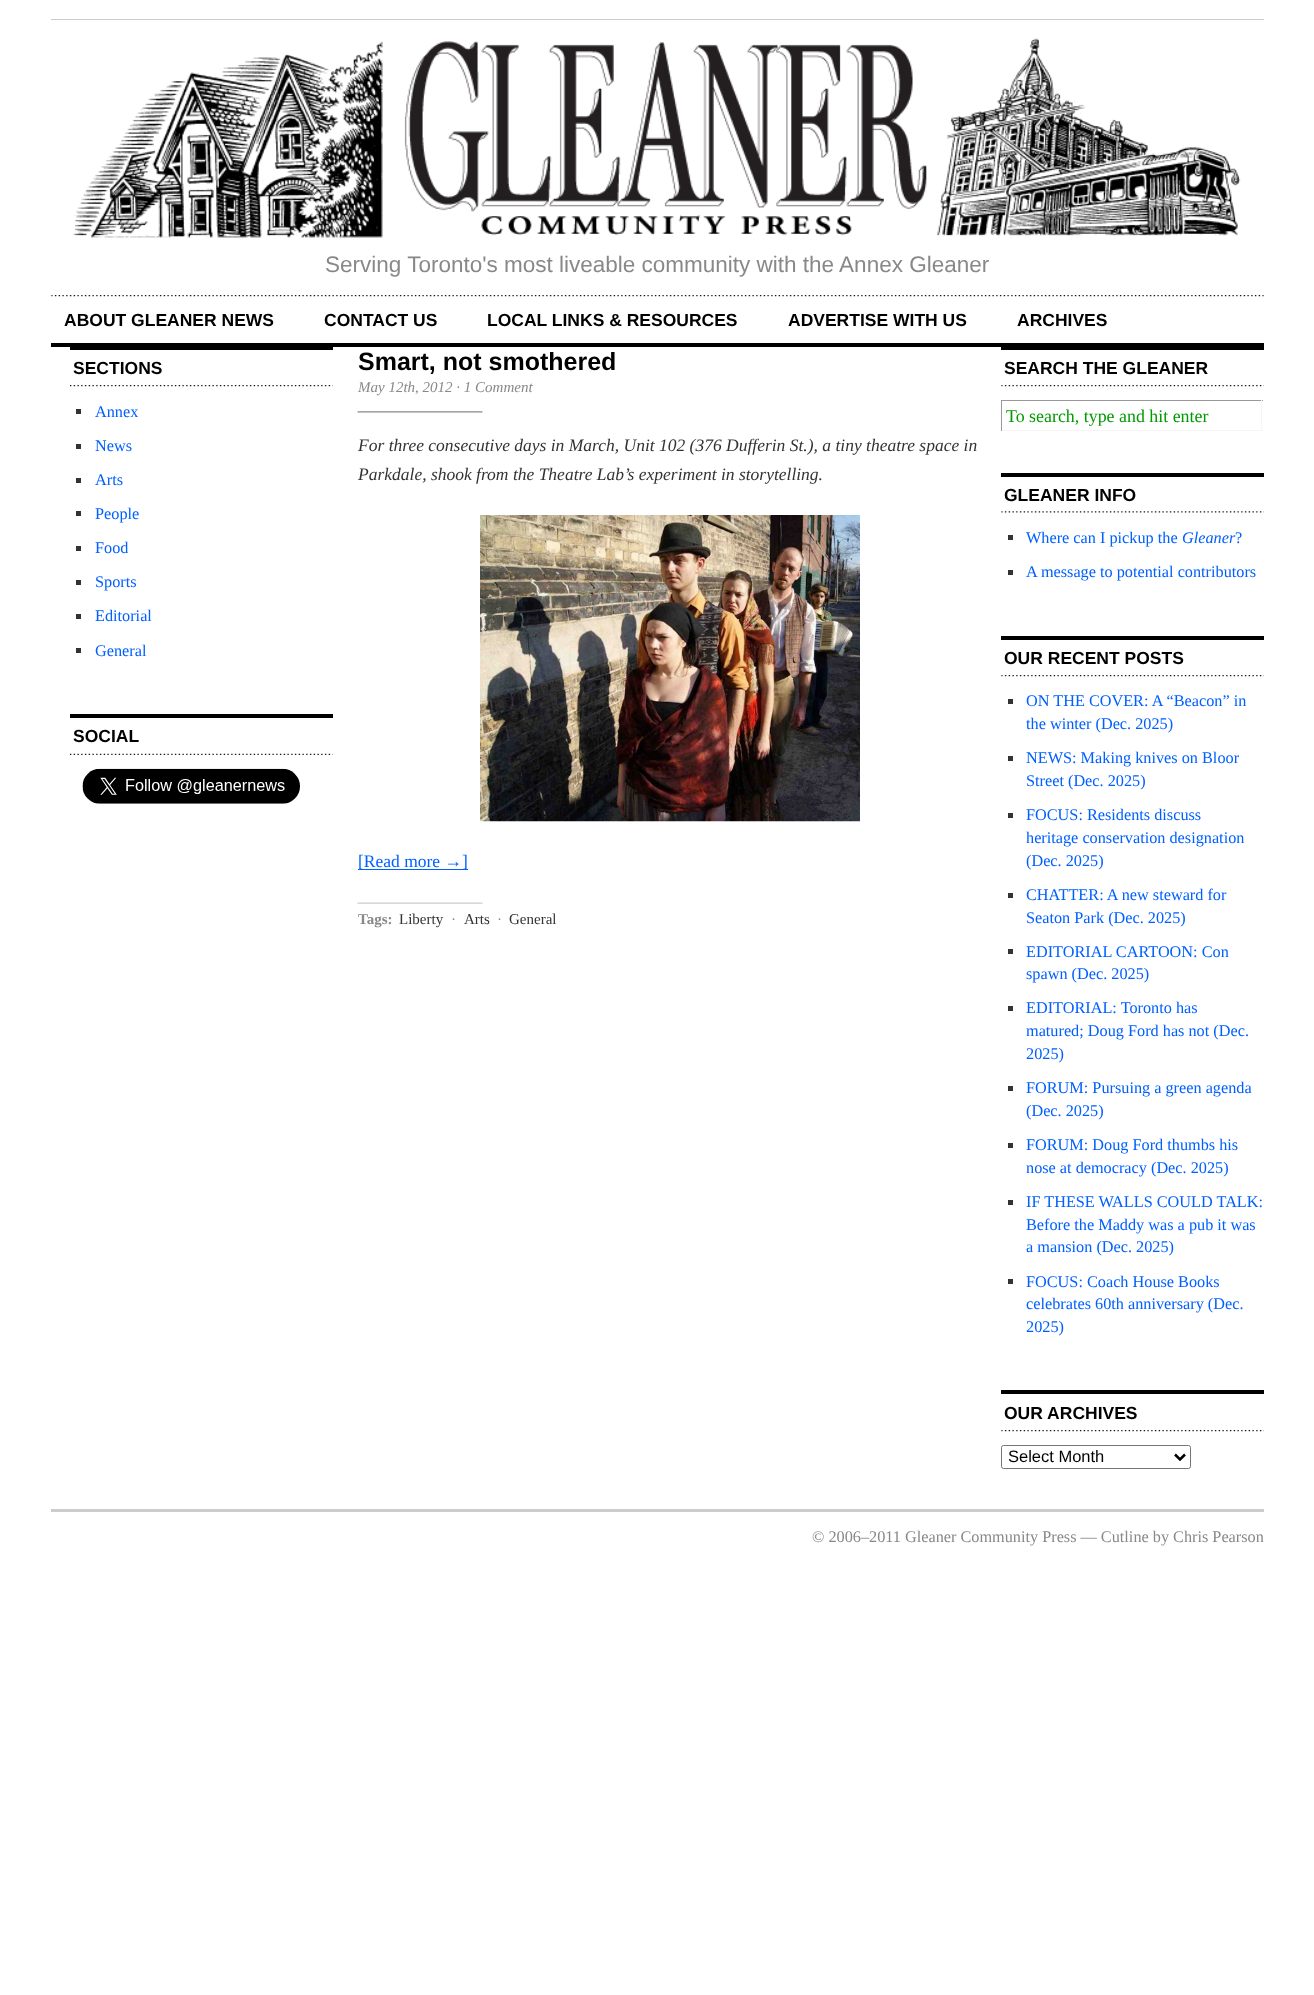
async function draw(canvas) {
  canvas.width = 1314;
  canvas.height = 1995;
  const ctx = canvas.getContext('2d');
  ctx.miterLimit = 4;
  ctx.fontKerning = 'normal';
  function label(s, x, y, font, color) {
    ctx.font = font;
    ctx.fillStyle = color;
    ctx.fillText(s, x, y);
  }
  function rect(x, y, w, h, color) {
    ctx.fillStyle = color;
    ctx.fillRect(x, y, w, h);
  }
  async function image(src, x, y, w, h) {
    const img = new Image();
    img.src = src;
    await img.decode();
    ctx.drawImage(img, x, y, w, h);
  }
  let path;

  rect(0, 0, 1314, 1995, '#fff');
  rect(51, 19, 1213, 1, '#ccc');
  await image('assets/img1.png', 72, 38, 1169, 200);
  label('Serving Toronto\'s most liveable community with the Annex Gleaner', 325, 272, '22.5px Liberation Sans', '#888');
  await image('assets/img2.png', 51, 295, 1213, 2);
  rect(51, 343, 1213, 4, '#000');
  label('ABOUT GLEANER NEWS', 64, 326, 'bold 17.5px Liberation Sans', '#000');
  label('CONTACT US', 324, 326, 'bold 17.5px Liberation Sans', '#000');
  label('LOCAL LINKS & RESOURCES', 487, 326, 'bold 17.5px Liberation Sans', '#000');
  label('ADVERTISE WITH US', 788, 326, 'bold 17.5px Liberation Sans', '#000');
  label('ARCHIVES', 1017, 326, 'bold 17.5px Liberation Sans', '#000');
  await image('assets/img3.png', 70, 385, 263, 2);
  rect(70, 347, 263, 3, '#000');
  label('SECTIONS', 73, 374, 'bold 17.5px Liberation Sans', '#000');
  rect(76, 409, 5, 5, '#333');
  label('Annex', 95, 417, '16.25px Liberation Serif', '#0060ff');
  rect(76, 444, 5, 5, '#333');
  label('News', 95, 451, '16.25px Liberation Serif', '#0060ff');
  rect(76, 478, 5, 5, '#333');
  label('Arts', 95, 485, '16.25px Liberation Serif', '#0060ff');
  rect(76, 511, 5, 5, '#333');
  label('People', 95, 519, '16.25px Liberation Serif', '#0060ff');
  rect(76, 546, 5, 5, '#333');
  label('Food', 95, 553, '16.25px Liberation Serif', '#0060ff');
  rect(76, 580, 5, 5, '#333');
  label('Sports', 95, 587, '16.25px Liberation Serif', '#0060ff');
  rect(76, 614, 5, 5, '#333');
  label('Editorial', 95, 621, '16.25px Liberation Serif', '#0060ff');
  rect(76, 648, 5, 5, '#333');
  label('General', 95, 656, '16.25px Liberation Serif', '#0060ff');
  await image('assets/img4.png', 70, 753, 263, 2);
  rect(70, 714, 263, 4, '#000');
  label('SOCIAL', 73, 742, 'bold 17.5px Liberation Sans', '#000');
  await image('assets/img5.png', 82, 768, 218, 36);
  label('Smart, not smothered', 358, 370, 'bold 25px Liberation Sans', '#000');
  await image('assets/img6.png', 357, 411, 126, 2);
  label('May 12th, 2012 · 1 Comment', 358, 392, 'italic 15px Liberation Serif', '#888');
  label('For three consecutive days in March, Unit 102 (376 Dufferin St.), a tiny theatre space in', 358, 451, 'italic 17.5px Liberation Serif', '#333');
  label('Parkdale, shook from the Theatre Lab’s experiment in storytelling.', 358, 480, 'italic 17.5px Liberation Serif', '#333');
  await image('assets/img7.png', 480, 515, 380, 307);
  rect(358, 869, 110, 1, '#0060ff');
  label('[Read more →]', 358, 867, '17.5px Liberation Serif', '#0060ff');
  await image('assets/img8.png', 357, 902, 126, 2);
  label('Tags:', 358, 924, 'bold 15px Liberation Serif', '#888');
  label('Liberty', 399, 924, '15px Liberation Serif', '#333');
  label('·', 451, 924, '15px Liberation Serif', '#888');
  label('Arts', 464, 924, '15px Liberation Serif', '#333');
  label('·', 497, 924, '15px Liberation Serif', '#888');
  label('General', 509, 924, '15px Liberation Serif', '#333');
  await image('assets/img9.png', 1001, 385, 263, 2);
  rect(1001, 347, 263, 3, '#000');
  label('SEARCH THE GLEANER', 1004, 374, 'bold 17.5px Liberation Sans', '#000');
  rect(1001, 400, 262, 1, '#999');
  rect(1261, 400, 1, 31, '#f5f5f5');
  rect(1001, 430, 262, 1, '#f5f5f5');
  rect(1001, 400, 1, 31, '#999');
  label('To search, type and hit enter', 1006, 422, '17.9px Liberation Serif', '#090');
  await image('assets/img10.png', 1001, 511, 263, 2);
  rect(1001, 473, 263, 4, '#000');
  label('GLEANER INFO', 1004, 501, 'bold 17.5px Liberation Sans', '#000');
  rect(1008, 535, 5, 5, '#333');
  label('Where can I pickup the', 1026, 543, '16.25px Liberation Serif', '#0060ff');
  label('Gleaner', 1182, 543, 'italic 16.25px Liberation Serif', '#0060ff');
  label('?', 1235, 543, '16.25px Liberation Serif', '#0060ff');
  rect(1008, 570, 5, 5, '#333');
  label('A message to potential contributors', 1026, 577, '16.25px Liberation Serif', '#0060ff');
  await image('assets/img9.png', 1001, 675, 263, 2);
  rect(1001, 636, 263, 4, '#000');
  label('OUR RECENT POSTS', 1004, 664, 'bold 17.5px Liberation Sans', '#000');
  rect(1008, 699, 5, 5, '#333');
  label('ON THE COVER: A “Beacon” in', 1026, 706, '16.25px Liberation Serif', '#0060ff');
  label('the winter (Dec. 2025)', 1026, 729, '16.25px Liberation Serif', '#0060ff');
  rect(1008, 756, 5, 5, '#333');
  label('NEWS: Making knives on Bloor', 1026, 763, '16.25px Liberation Serif', '#0060ff');
  label('Street (Dec. 2025)', 1026, 786, '16.25px Liberation Serif', '#0060ff');
  rect(1008, 813, 5, 5, '#333');
  label('FOCUS: Residents discuss', 1026, 820, '16.25px Liberation Serif', '#0060ff');
  label('heritage conservation designation', 1026, 843, '16.25px Liberation Serif', '#0060ff');
  label('(Dec. 2025)', 1026, 866, '16.25px Liberation Serif', '#0060ff');
  rect(1008, 893, 5, 5, '#333');
  label('CHATTER: A new steward for', 1026, 900, '16.25px Liberation Serif', '#0060ff');
  label('Seaton Park (Dec. 2025)', 1026, 923, '16.25px Liberation Serif', '#0060ff');
  rect(1008, 949, 5, 5, '#333');
  label('EDITORIAL CARTOON: Con', 1026, 957, '16.25px Liberation Serif', '#0060ff');
  label('spawn (Dec. 2025)', 1026, 979, '16.25px Liberation Serif', '#0060ff');
  rect(1008, 1006, 5, 5, '#333');
  label('EDITORIAL: Toronto has', 1026, 1013, '16.25px Liberation Serif', '#0060ff');
  label('matured; Doug Ford has not (Dec.', 1026, 1036, '16.25px Liberation Serif', '#0060ff');
  label('2025)', 1026, 1059, '16.25px Liberation Serif', '#0060ff');
  rect(1008, 1086, 5, 5, '#333');
  label('FORUM: Pursuing a green agenda', 1026, 1093, '16.25px Liberation Serif', '#0060ff');
  label('(Dec. 2025)', 1026, 1116, '16.25px Liberation Serif', '#0060ff');
  rect(1008, 1143, 5, 5, '#333');
  label('FORUM: Doug Ford thumbs his', 1026, 1150, '16.25px Liberation Serif', '#0060ff');
  label('nose at democracy (Dec. 2025)', 1026, 1173, '16.25px Liberation Serif', '#0060ff');
  rect(1008, 1200, 5, 5, '#333');
  label('IF THESE WALLS COULD TALK:', 1026, 1207, '16.25px Liberation Serif', '#0060ff');
  label('Before the Maddy was a pub it was', 1026, 1230, '16.25px Liberation Serif', '#0060ff');
  label('a mansion (Dec. 2025)', 1026, 1252, '16.25px Liberation Serif', '#0060ff');
  rect(1008, 1279, 5, 5, '#333');
  label('FOCUS: Coach House Books', 1026, 1287, '16.25px Liberation Serif', '#0060ff');
  label('celebrates 60th anniversary (Dec.', 1026, 1309, '16.25px Liberation Serif', '#0060ff');
  label('2025)', 1026, 1332, '16.25px Liberation Serif', '#0060ff');
  await image('assets/img9.png', 1001, 1430, 263, 2);
  rect(1001, 1390, 263, 4, '#000');
  label('OUR ARCHIVES', 1004, 1419, 'bold 17.5px Liberation Sans', '#000');
  ctx.beginPath();
  ctx.roundRect(1001.5, 1445.5, 189, 23, 2);
  ctx.strokeStyle = '#767676';
  ctx.stroke();
  path = new Path2D('M1175 1454.5L1180 1459.5L1185 1454.5');
  ctx.strokeStyle = '#000';
  ctx.lineWidth = 2.5;
  ctx.stroke(path);
  label('Select Month', 1008, 1462, '16.5px Liberation Sans', '#000');
  rect(51, 1509, 1213, 3, '#ccc');
  label('© 2006–2011 Gleaner Community Press — Cutline by Chris Pearson', 812, 1542, '16.25px Liberation Serif', '#888');
}

draw(document.querySelector('canvas'));
